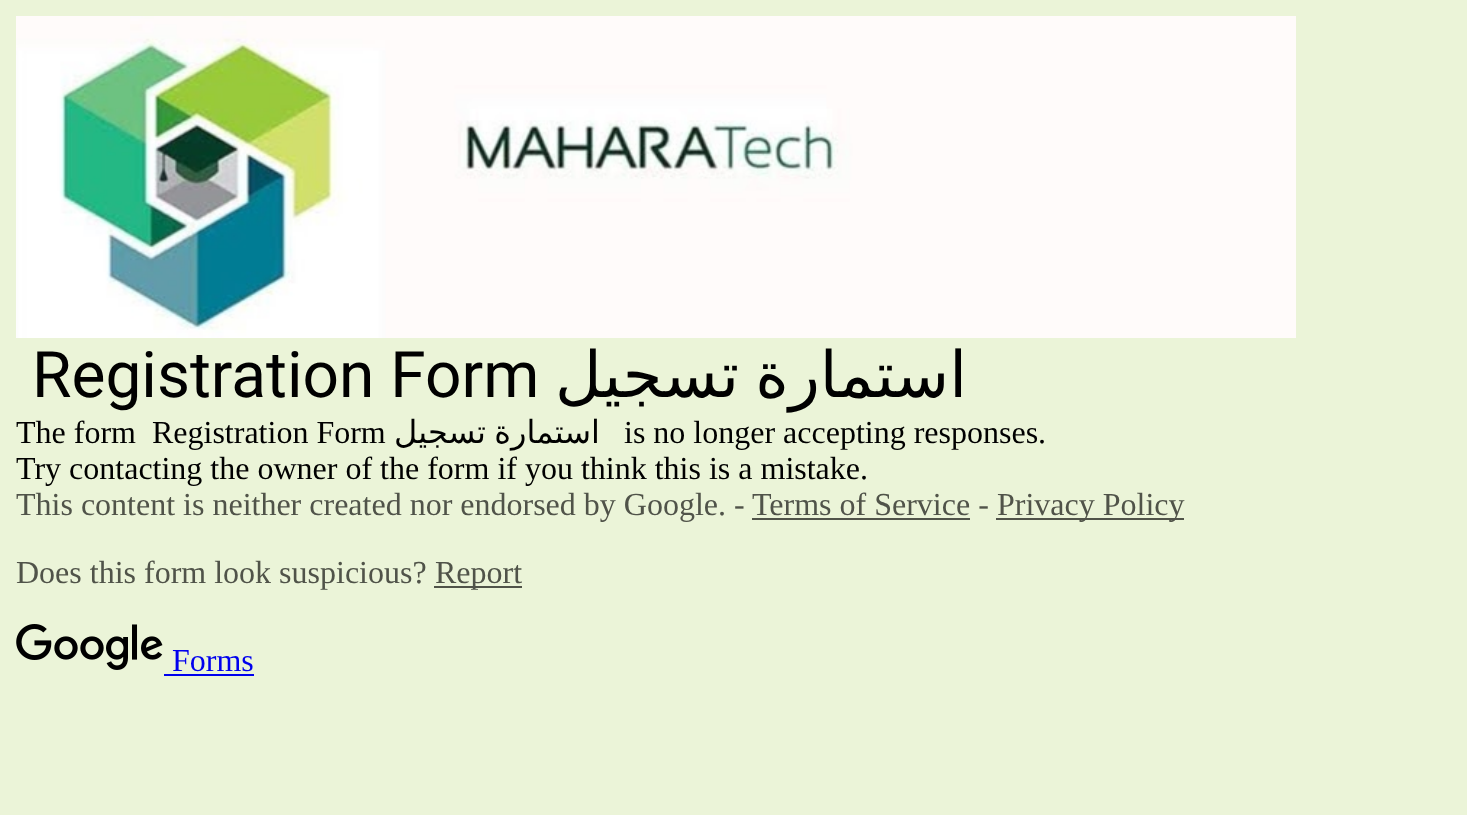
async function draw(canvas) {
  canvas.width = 1467;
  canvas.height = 815;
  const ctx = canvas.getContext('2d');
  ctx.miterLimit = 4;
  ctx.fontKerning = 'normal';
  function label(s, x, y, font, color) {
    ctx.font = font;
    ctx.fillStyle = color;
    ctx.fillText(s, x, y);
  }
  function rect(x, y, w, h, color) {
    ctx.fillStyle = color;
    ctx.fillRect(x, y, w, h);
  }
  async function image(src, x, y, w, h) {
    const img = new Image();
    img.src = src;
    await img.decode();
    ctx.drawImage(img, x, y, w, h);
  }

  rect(0, 0, 1467, 815, '#ebf4d8');
  await image('assets/img1.png', 16, 16, 1280, 322);
  label('Registration Form', 32, 397, '64px Roboto', '#000');
  ctx.wordSpacing = '-4px';
  ctx.direction = 'rtl';
  label('استمارة تسجيل', 967, 397, '64px DejaVu Sans', '#000');
  ctx.wordSpacing = '0px';
  ctx.direction = 'ltr';
  label('The form  Registration Form', 16, 443, '32px Liberation Serif', '#000');
  ctx.wordSpacing = '-2px';
  ctx.direction = 'rtl';
  label('استمارة تسجيل', 600, 443, '32px DejaVu Sans', '#000');
  ctx.wordSpacing = '0px';
  ctx.direction = 'ltr';
  label('is no longer accepting responses.', 624, 443, '32px Liberation Serif', '#000');
  label('Try contacting the owner of the form if you think this is a mistake.', 16, 479, '32px Liberation Serif', '#000');
  label('This content is neither created nor endorsed by Google. -', 16, 515, '32px Liberation Serif', '#505349');
  label('Terms of Service -', 752, 515, '32px Liberation Serif', '#505349');
  rect(752, 518, 218, 2, '#505349');
  rect(996, 518, 188, 2, '#505349');
  label('Privacy Policy', 997, 515, '32px Liberation Serif', '#505349');
  label('Does this form look suspicious?', 16, 583, '32px Liberation Serif', '#505349');
  rect(434, 586, 88, 2, '#505349');
  label('Report', 435, 583, '32px Liberation Serif', '#505349');
  await image('assets/img2.png', 16, 624, 147, 46);
  label('Forms', 172, 671, '32px Liberation Serif', '#00e');
  rect(164, 674, 90, 2, '#00e');
}

draw(document.querySelector('canvas'));
